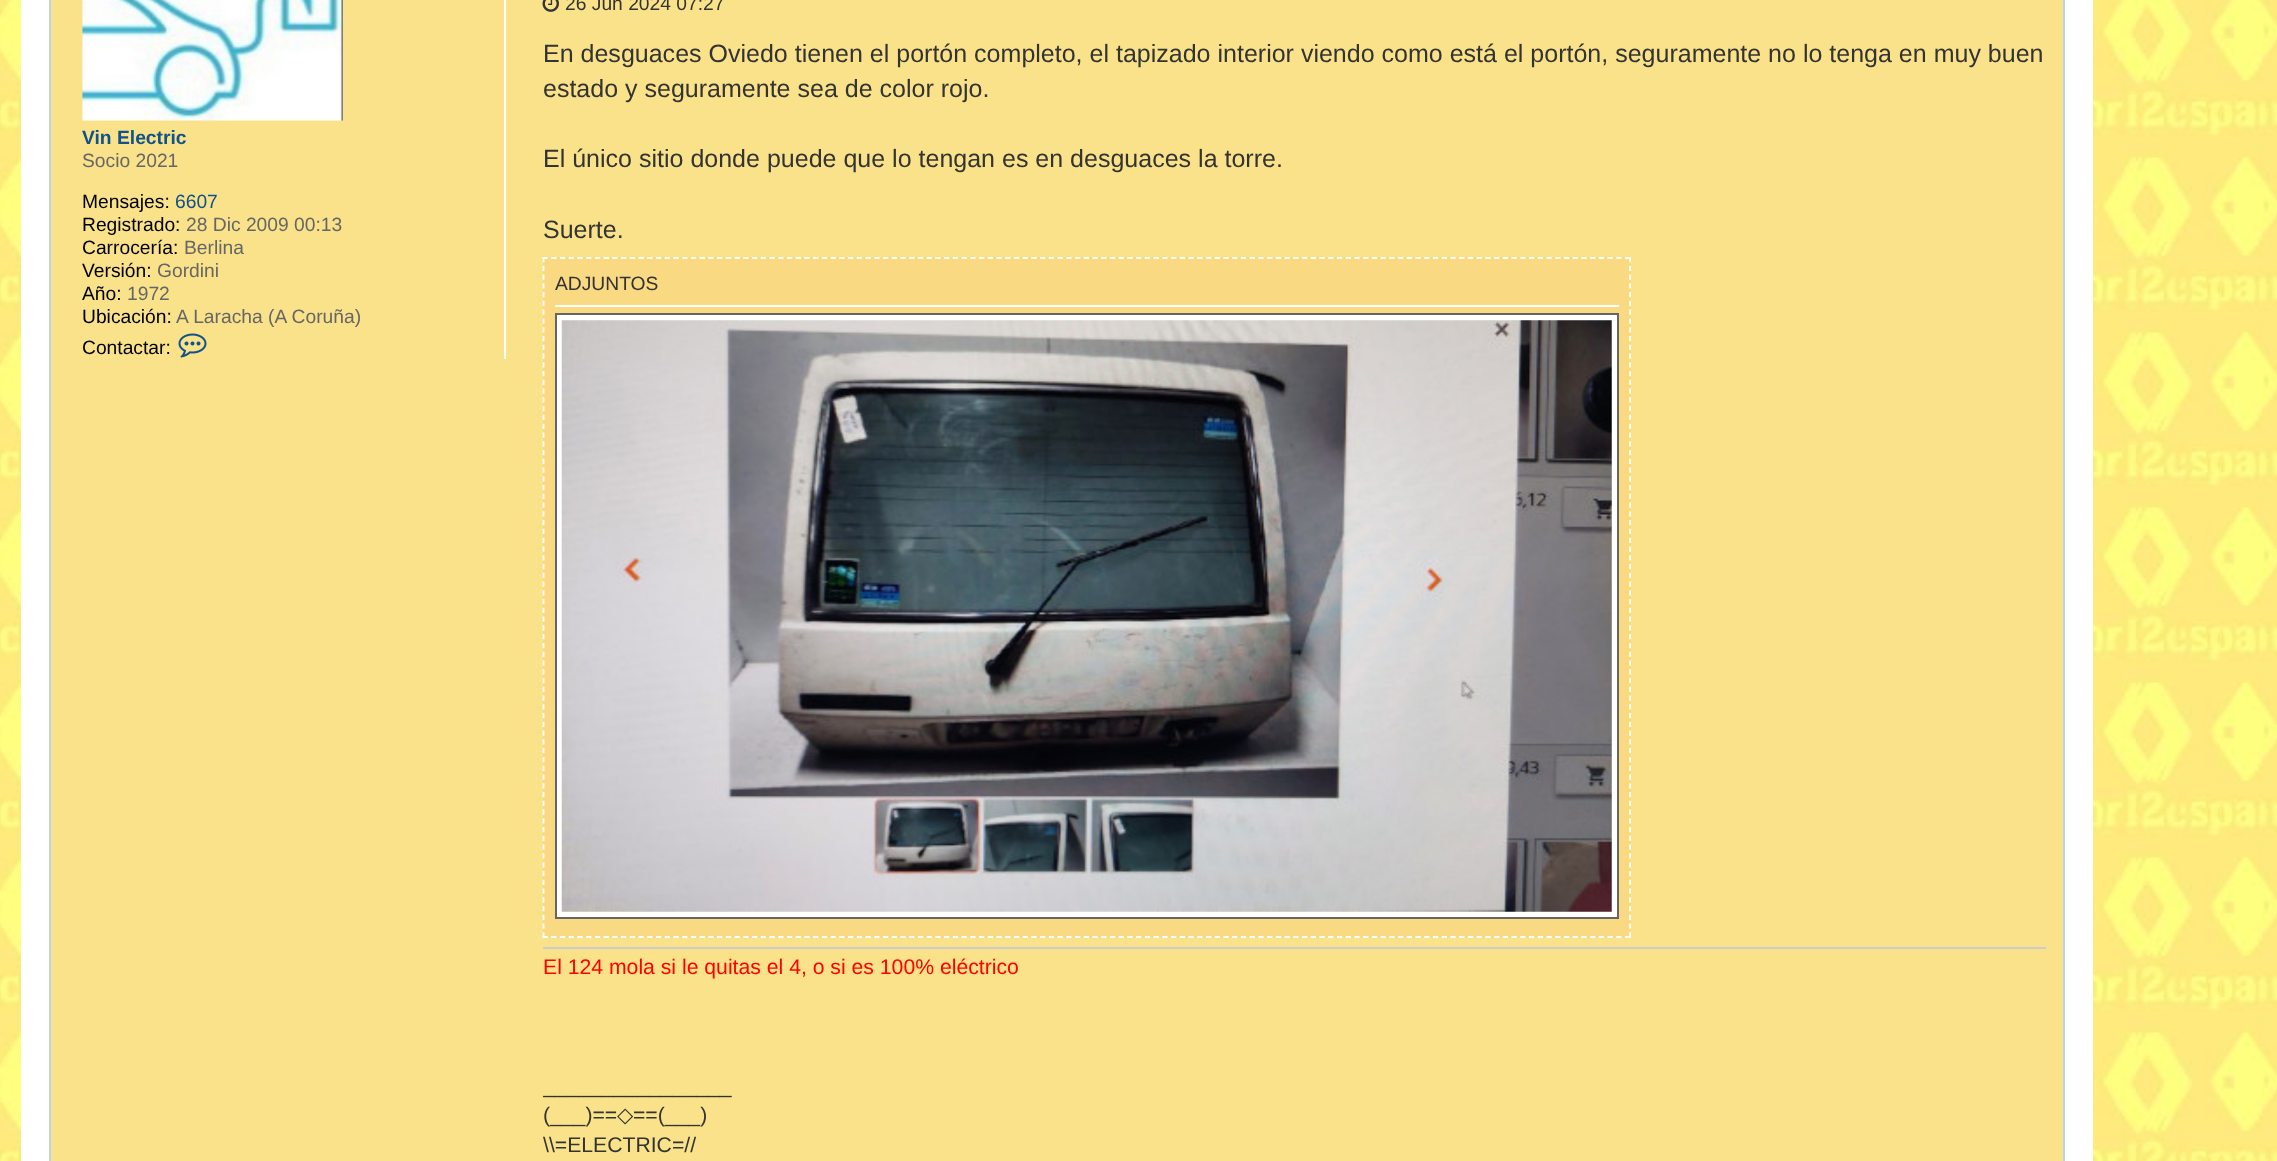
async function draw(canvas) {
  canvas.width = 2277;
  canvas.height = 1161;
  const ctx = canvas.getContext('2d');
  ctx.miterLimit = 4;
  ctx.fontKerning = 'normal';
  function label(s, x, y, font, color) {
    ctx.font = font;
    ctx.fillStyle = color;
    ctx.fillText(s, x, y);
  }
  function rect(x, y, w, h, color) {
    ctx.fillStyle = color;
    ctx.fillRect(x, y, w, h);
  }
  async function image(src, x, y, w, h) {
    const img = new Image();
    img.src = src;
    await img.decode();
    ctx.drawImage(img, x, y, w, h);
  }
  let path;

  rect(0, 0, 2277, 1161, '#fff');
  await image('assets/img1.png', 0, 0, 2277, 1161);
  rect(21, 0, 2072, 1161, '#fff');
  ctx.fillStyle = '#f9e289';
  ctx.beginPath();
  ctx.rect(50, -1, 2014, 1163);
  ctx.fill();
  ctx.strokeStyle = '#bcd4e3';
  ctx.lineWidth = 2;
  ctx.stroke();
  rect(504, 0, 2, 359, '#fff');
  await image('assets/img2.png', 82, 0, 261, 121);
  label('Vin Electric', 82, 144, 'bold 19.25px Liberation Sans', '#105289');
  label('Socio 2021', 82, 167, '19.25px Liberation Sans', '#666');
  label('Mensajes:', 82, 208, '19.25px Liberation Sans', '#000');
  label('6607', 175, 208, '19.25px Liberation Sans', '#105289');
  label('Registrado:', 82, 231, '19.25px Liberation Sans', '#000');
  label('28 Dic 2009 00:13', 186, 231, '19.25px Liberation Sans', '#666');
  label('Carrocería:', 82, 254, '19.25px Liberation Sans', '#000');
  label('Berlina', 184, 254, '19.25px Liberation Sans', '#666');
  label('Versión:', 82, 277, '19.25px Liberation Sans', '#000');
  label('Gordini', 157, 277, '19.25px Liberation Sans', '#666');
  label('Año:', 82, 300, '19.25px Liberation Sans', '#000');
  label('1972', 127, 300, '19.25px Liberation Sans', '#666');
  label('Ubicación:', 82, 323, '19.25px Liberation Sans', '#000');
  label('A Laracha (A Coruña)', 176, 323, '19.25px Liberation Sans', '#666');
  label('Contactar:', 82, 354, '19.25px Liberation Sans', '#000');
  await image('assets/img3.png', 178, 333, 29, 25);
  await image('assets/img4.png', 542, 0, 17, 12);
  label('26 Jun 2024 07:27', 565, 10, '19.25px Liberation Sans', '#333');
  label('En desguaces Oviedo tienen el portón completo, el tapizado interior viendo como está el portón, seguramente no lo tenga en muy buen', 543, 62, '25.03px Liberation Sans', '#333');
  label('estado y seguramente sea de color rojo.', 543, 97, '25.03px Liberation Sans', '#333');
  label('El único sitio donde puede que lo tengan es en desguaces la torre.', 543, 167, '25.03px Liberation Sans', '#333');
  label('Suerte.', 543, 238, '25.03px Liberation Sans', '#333');
  rect(543, 257, 1088, 681, '#fad983');
  path = new Path2D('M542.5 258H1631');
  ctx.strokeStyle = '#fff';
  ctx.lineWidth = 1.8;
  ctx.setLineDash([5.25, 3.48]);
  ctx.stroke(path);
  path = new Path2D('M1630 257V938');
  ctx.setLineDash([5.25, 3.52]);
  ctx.stroke(path);
  path = new Path2D('M542.5 937H1631');
  ctx.setLineDash([5.25, 3.48]);
  ctx.stroke(path);
  path = new Path2D('M543.5 257V938');
  ctx.setLineDash([5.25, 3.52]);
  ctx.stroke(path);
  label('ADJUNTOS', 555, 290, '19.25px Liberation Sans', '#333');
  rect(555, 305, 1064, 2, '#fff');
  ctx.beginPath();
  ctx.rect(556, 314, 1062, 604);
  ctx.fill();
  ctx.strokeStyle = '#666';
  ctx.lineWidth = 2;
  ctx.setLineDash([]);
  ctx.stroke();
  await image('assets/img5.png', 561, 320, 1051, 592);
  rect(543, 947, 1503, 2, '#ccc');
  label('El 124 mola si le quitas el 4, o si es 100% eléctrico', 543, 974, '21.2px Liberation Sans', '#f00');
  ctx.save();
  ctx.beginPath();
  ctx.rect(543, 949, 1503, 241);
  ctx.clip();
  label('________________', 543, 1093, '21.2px Liberation Sans', '#333');
  ctx.restore();
  label('(___)==', 543, 1122, '21.2px Liberation Sans', '#333');
  label('◇', 617, 1122, '21.2px DejaVu Sans', '#333');
  label('==(___)', 633, 1122, '21.2px Liberation Sans', '#333');
  label('\\\\=ELECTRIC=//', 543, 1152, '21.2px Liberation Sans', '#333');
}

draw(document.querySelector('canvas'));
